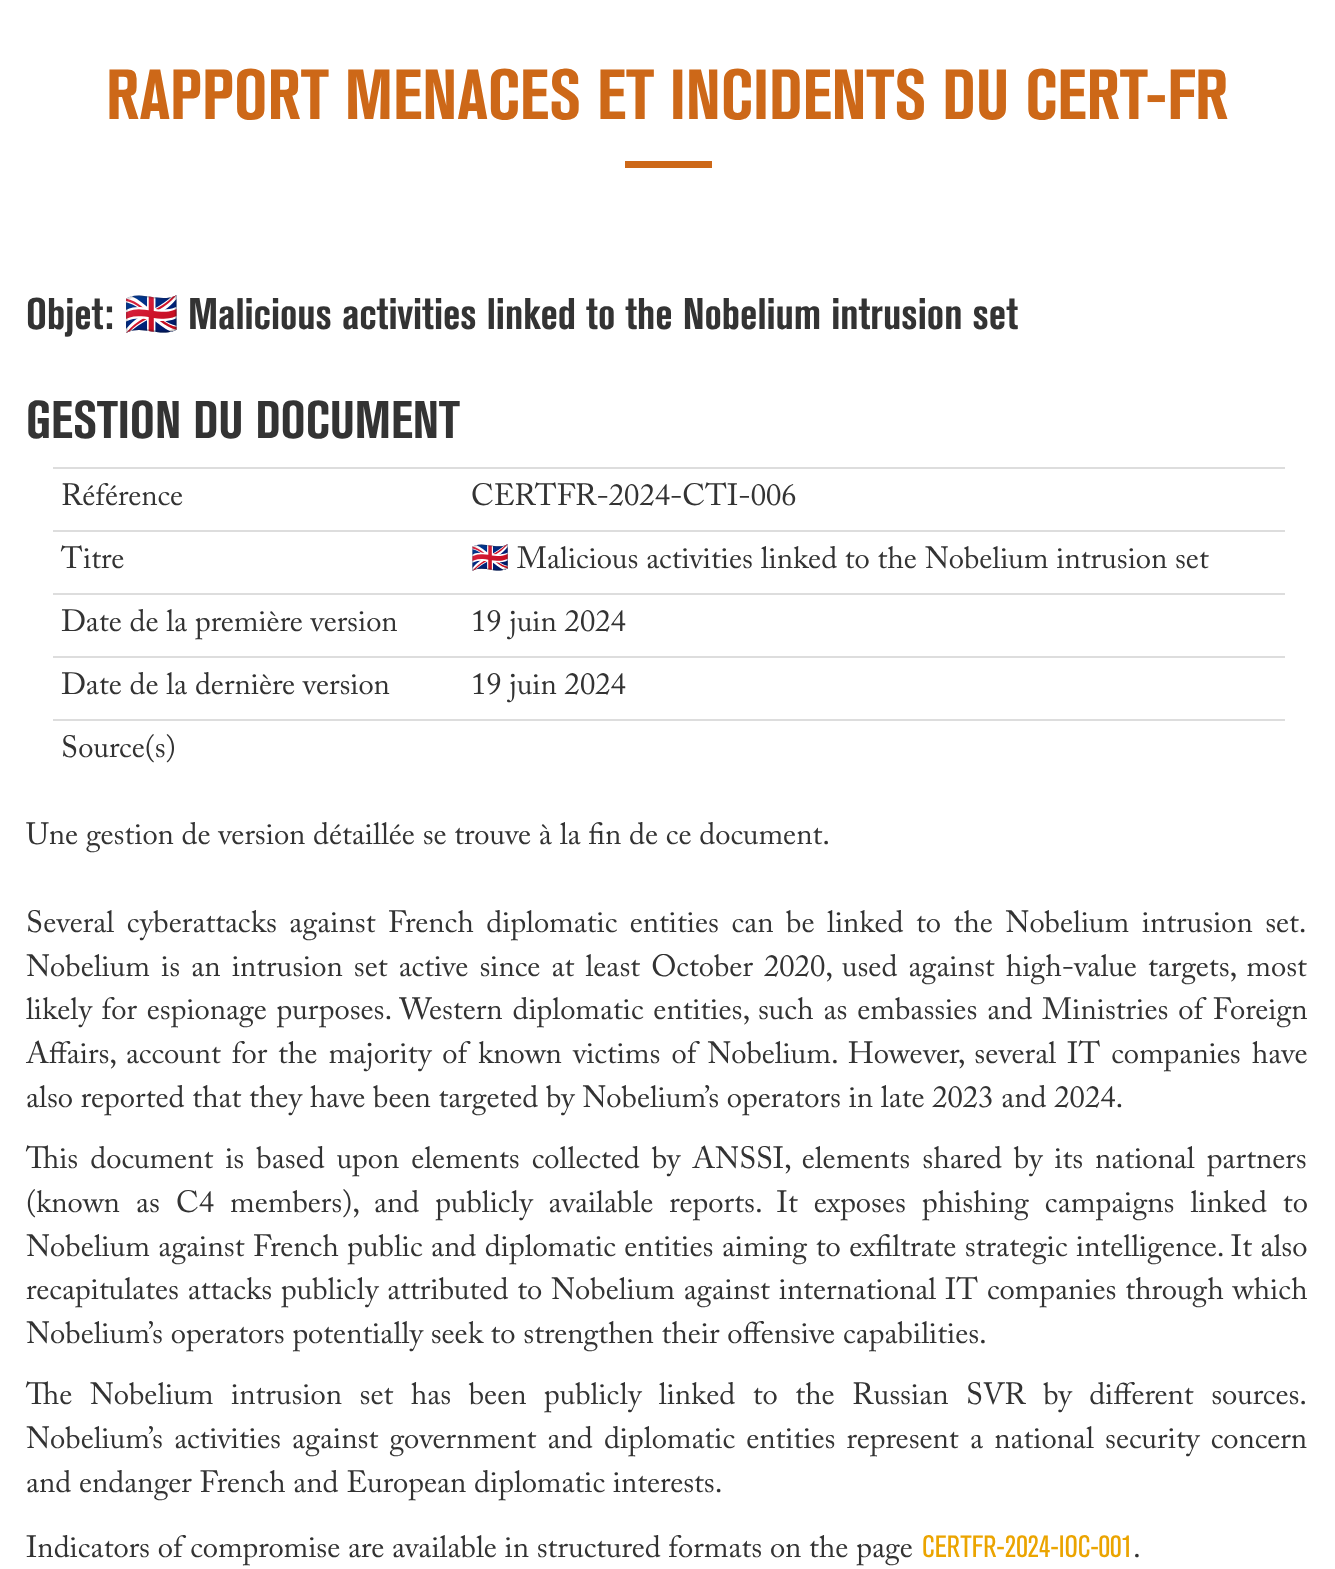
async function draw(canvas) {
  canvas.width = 1335;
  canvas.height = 1569;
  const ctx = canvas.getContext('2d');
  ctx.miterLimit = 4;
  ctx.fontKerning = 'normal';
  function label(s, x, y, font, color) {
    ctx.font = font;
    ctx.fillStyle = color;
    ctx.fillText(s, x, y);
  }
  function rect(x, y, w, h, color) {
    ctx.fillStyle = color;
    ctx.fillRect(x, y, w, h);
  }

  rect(0, 0, 1335, 1569, '#fff');
  label('RAPPORT MENACES ET INCIDENTS DU CERT-FR', 106, 119, 'bold 70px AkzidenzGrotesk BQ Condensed', '#cd6818');
  rect(625, 161, 87, 7, '#cd6818');
  label('Objet:', 26, 329, 'bold 43.75px AkzidenzGrotesk BQ Condensed', '#333');
  label('🇬🇧', 124, 329, '43.75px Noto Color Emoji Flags', '#333');
  label('Malicious activities linked to the Nobelium intrusion set', 188, 329, 'bold 43.75px AkzidenzGrotesk BQ Condensed', '#333');
  label('GESTION DU DOCUMENT', 26, 438, 'bold 52.5px AkzidenzGrotesk BQ Condensed', '#333');
  label('Référence', 61, 505, '30.6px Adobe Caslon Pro', '#333');
  rect(53, 467, 1232, 2, '#ddd');
  label('CERTFR-2024-CTI-006', 471, 505, '30.6px Adobe Caslon Pro', '#333');
  label('Titre', 61, 568, '30.6px Adobe Caslon Pro', '#333');
  rect(53, 530, 1232, 2, '#ddd');
  label('🇬🇧', 471, 568, '30.6px Noto Color Emoji Flags', '#333');
  label('Malicious activities linked to the Nobelium intrusion set', 517, 568, '30.6px Adobe Caslon Pro', '#333');
  label('Date de la première version', 61, 631, '30.6px Adobe Caslon Pro', '#333');
  rect(53, 593, 1232, 2, '#ddd');
  label('19 juin 2024', 471, 631, '30.6px Adobe Caslon Pro', '#333');
  label('Date de la dernière version', 61, 694, '30.6px Adobe Caslon Pro', '#333');
  rect(53, 656, 1232, 2, '#ddd');
  label('19 juin 2024', 471, 694, '30.6px Adobe Caslon Pro', '#333');
  rect(53, 719, 1232, 2, '#ddd');
  label('Source(s)', 61, 757, '30.6px Adobe Caslon Pro', '#333');
  label('Une gestion de version détaillée se trouve à la fin de ce document.', 26, 844, '30.6px Adobe Caslon Pro', '#333');
  ctx.wordSpacing = '4.75px';
  label('Several cyberattacks against French diplomatic entities can be linked to the Nobelium intrusion set.', 26, 932, '30.6px Adobe Caslon Pro', '#333');
  ctx.wordSpacing = '3.4px';
  label('Nobelium is an intrusion set active since at least October 2020, used against high-value targets, most', 26, 976, '30.6px Adobe Caslon Pro', '#333');
  ctx.wordSpacing = '2.1px';
  label('likely for espionage purposes. Western diplomatic entities, such as embassies and Ministries of Foreign', 26, 1019, '30.6px Adobe Caslon Pro', '#333');
  ctx.wordSpacing = '3.25px';
  label('Affairs, account for the majority of known victims of Nobelium. However, several IT companies have', 26, 1063, '30.6px Adobe Caslon Pro', '#333');
  ctx.wordSpacing = '0px';
  label('also reported that they have been targeted by Nobelium’s operators in late 2023 and 2024.', 26, 1107, '30.6px Adobe Caslon Pro', '#333');
  ctx.wordSpacing = '4.25px';
  label('This document is based upon elements collected by ANSSI, elements shared by its national partners', 26, 1168, '30.6px Adobe Caslon Pro', '#333');
  ctx.wordSpacing = '8.25px';
  label('(known as C4 members), and publicly available reports. It exposes phishing campaigns linked to', 26, 1212, '30.6px Adobe Caslon Pro', '#333');
  ctx.wordSpacing = '0.75px';
  label('Nobelium against French public and diplomatic entities aiming to exfiltrate strategic intelligence. It also', 26, 1256, '30.6px Adobe Caslon Pro', '#333');
  ctx.wordSpacing = '1.1px';
  label('recapitulates attacks publicly attributed to Nobelium against international IT companies through which', 26, 1299, '30.6px Adobe Caslon Pro', '#333');
  ctx.wordSpacing = '0px';
  label('Nobelium’s operators potentially seek to strengthen their offensive capabilities.', 26, 1343, '30.6px Adobe Caslon Pro', '#333');
  ctx.wordSpacing = '9.75px';
  label('The Nobelium intrusion set has been publicly linked to the Russian SVR by different sources.', 26, 1404, '30.6px Adobe Caslon Pro', '#333');
  ctx.wordSpacing = '3.5px';
  label('Nobelium’s activities against government and diplomatic entities represent a national security concern', 26, 1448, '30.6px Adobe Caslon Pro', '#333');
  ctx.wordSpacing = '0px';
  label('and endanger French and European diplomatic interests.', 26, 1492, '30.6px Adobe Caslon Pro', '#333');
  label('Indicators of compromise are available in structured formats on the page', 26, 1557, '30.6px Adobe Caslon Pro', '#333');
  label('CERTFR-2024-IOC-001', 922, 1557, '500 30.6px AkzidenzGrotesk BQ Condensed', '#eba400');
  label('.', 1133, 1557, '30.6px Adobe Caslon Pro', '#333');
}

draw(document.querySelector('canvas'));
